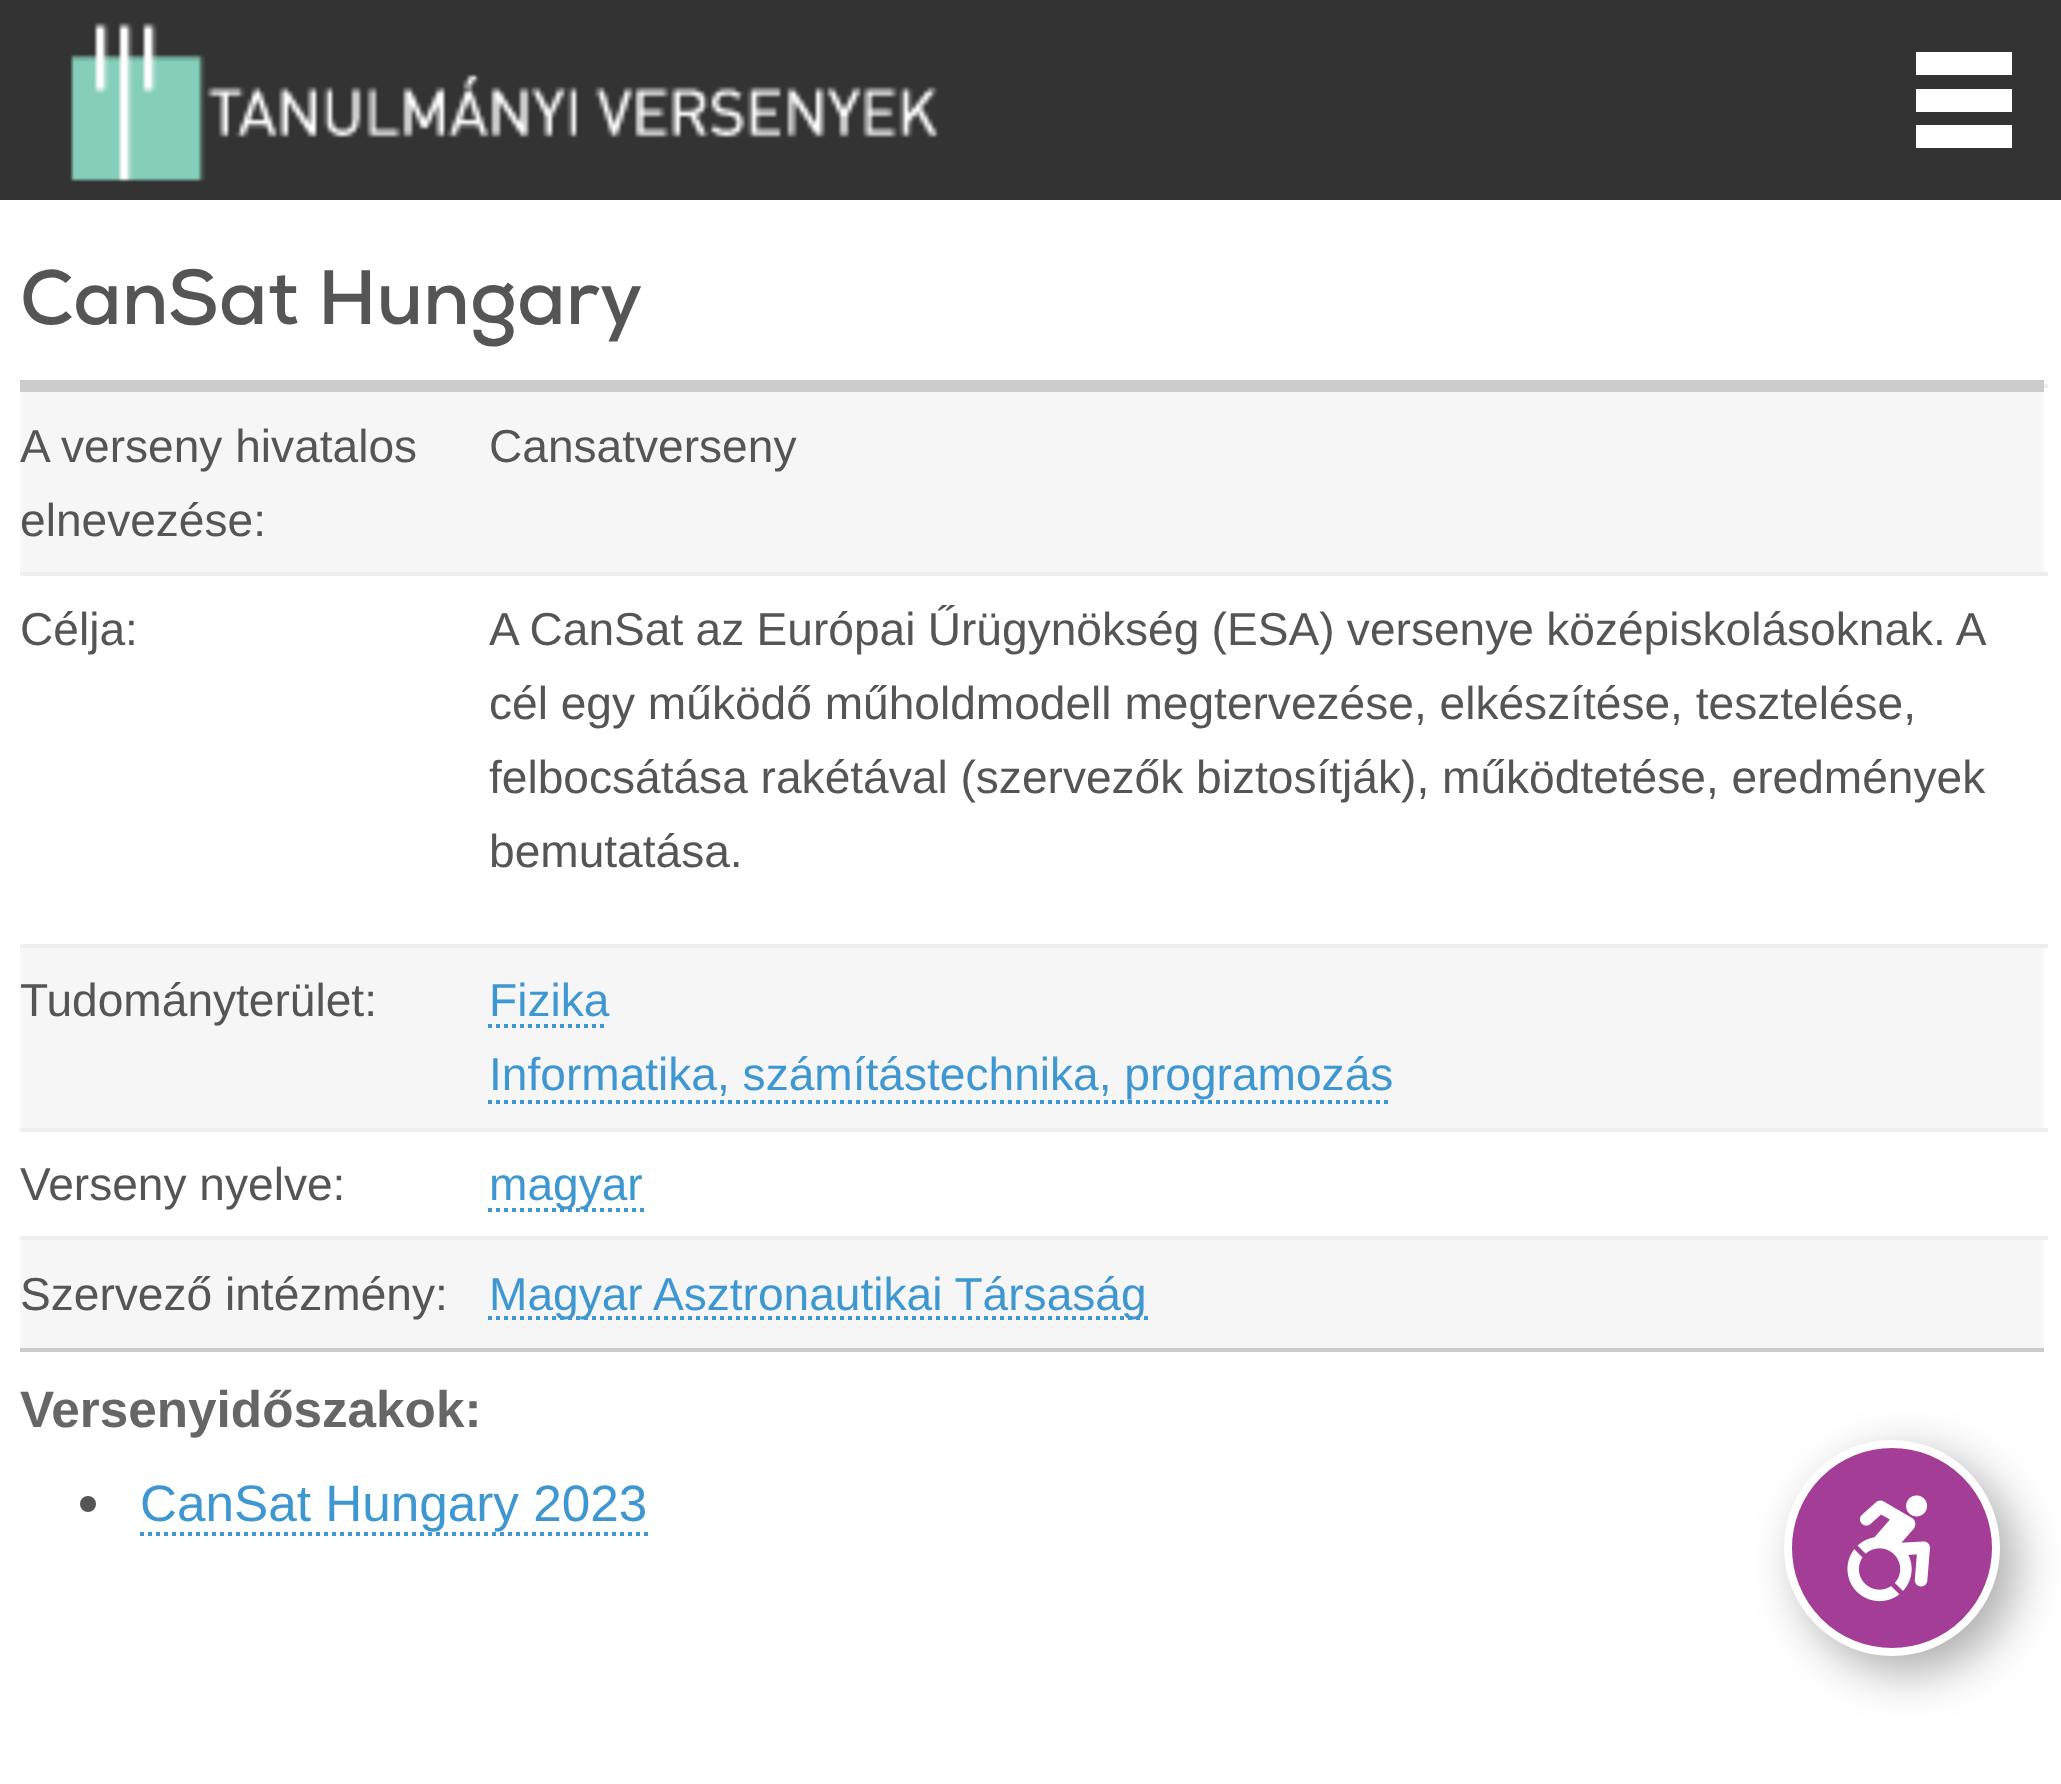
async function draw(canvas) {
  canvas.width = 2061;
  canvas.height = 1784;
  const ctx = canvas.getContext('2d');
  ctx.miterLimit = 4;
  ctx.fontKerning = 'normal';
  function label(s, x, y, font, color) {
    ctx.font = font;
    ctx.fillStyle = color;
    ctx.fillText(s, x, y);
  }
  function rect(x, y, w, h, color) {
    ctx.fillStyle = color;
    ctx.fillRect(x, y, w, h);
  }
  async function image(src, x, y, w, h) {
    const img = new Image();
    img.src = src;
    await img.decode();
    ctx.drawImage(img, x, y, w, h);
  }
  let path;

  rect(0, 0, 2061, 1784, '#fff');
  rect(0, 0, 2061, 200, '#333');
  await image('assets/img1.png', 70, 22, 870, 160);
  ctx.fillStyle = '#fff';
  path = new Path2D('M1916 112V89H2012V112ZM1916 75H2012V52H1916ZM2012 148V125H1916V148Z');
  ctx.fill(path);
  label('CanSat Hungary', 20, 324, 'bold 76.75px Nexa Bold', '#555');
  rect(20, 1348, 2024, 4, '#ccc');
  rect(20, 380, 2024, 12, '#ccc');
  rect(20, 392, 2024, 180, '#f6f6f6');
  label('A verseny hivatalos', 20, 462, '46.1px Liberation Sans', '#555');
  label('elnevezése:', 20, 536, '46.1px Liberation Sans', '#555');
  rect(2044, 384, 4, 4, '#eee');
  label('Cansatverseny', 489, 462, '46.1px Liberation Sans', '#555');
  label('Célja:', 20, 645, '46.1px Liberation Sans', '#555');
  rect(20, 572, 2028, 4, '#eee');
  ctx.wordSpacing = '-0.5px';
  label('A CanSat az Európai Űrügynökség (ESA) versenye középiskolásoknak. A', 489, 645, '46.1px Liberation Sans', '#555');
  ctx.wordSpacing = '0px';
  label('cél egy működő műholdmodell megtervezése, elkészítése, tesztelése,', 489, 719, '46.1px Liberation Sans', '#555');
  label('felbocsátása rakétával (szervezők biztosítják), működtetése, eredmények', 489, 793, '46.1px Liberation Sans', '#555');
  label('bemutatása.', 489, 867, '46.1px Liberation Sans', '#555');
  rect(20, 948, 2024, 180, '#f6f6f6');
  label('Tudományterület:', 20, 1016, '46.1px Liberation Sans', '#555');
  rect(20, 944, 2028, 4, '#eee');
  label('Fizika', 489, 1016, '46.1px Liberation Sans', '#3e97d1');
  path = new Path2D('M488 1026H608');
  ctx.strokeStyle = '#3e97d1';
  ctx.lineWidth = 4;
  ctx.setLineDash([4, 4]);
  ctx.stroke(path);
  label('Informatika, számítástechnika, programozás', 489, 1090, '46.1px Liberation Sans', '#3e97d1');
  path = new Path2D('M488 1102H1392');
  ctx.stroke(path);
  label('Verseny nyelve:', 20, 1200, '46.1px Liberation Sans', '#555');
  rect(20, 1128, 2028, 4, '#eee');
  path = new Path2D('M488 1210H644');
  ctx.stroke(path);
  label('magyar', 489, 1200, '46.1px Liberation Sans', '#3e97d1');
  rect(20, 1240, 2024, 108, '#f6f6f6');
  label('Szervező intézmény:', 20, 1310, '46.1px Liberation Sans', '#555');
  rect(20, 1236, 2028, 4, '#eee');
  path = new Path2D('M488 1318H1148');
  ctx.stroke(path);
  label('Magyar Asztronautikai Társaság', 489, 1310, '46.1px Liberation Sans', '#3e97d1');
  label('Versenyidőszakok:', 20, 1427, 'bold 51.25px Liberation Sans', '#666');
  ctx.fillStyle = '#555';
  ctx.beginPath();
  ctx.arc(88, 1504, 8, 0, 2 * Math.PI);
  ctx.fill();
  label('CanSat Hungary 2023', 140, 1521, '51.25px Liberation Sans', '#3e97d1');
  path = new Path2D('M140 1534H648');
  ctx.stroke(path);
  ctx.fillStyle = '#00000054';
  ctx.filter = 'blur(24px)';
  ctx.beginPath();
  ctx.roundRect(1800, 1456, 216, 216, 108);
  ctx.fill();
  ctx.filter = 'none';
  ctx.fillStyle = '#a33d96';
  ctx.beginPath();
  ctx.arc(1892, 1548, 104, 0, 2 * Math.PI);
  ctx.fill();
  ctx.strokeStyle = '#fff';
  ctx.lineWidth = 8;
  ctx.setLineDash([]);
  ctx.stroke();
  await image('assets/img2.png', 1847, 1495, 83, 107);
}

draw(document.querySelector('canvas'));
